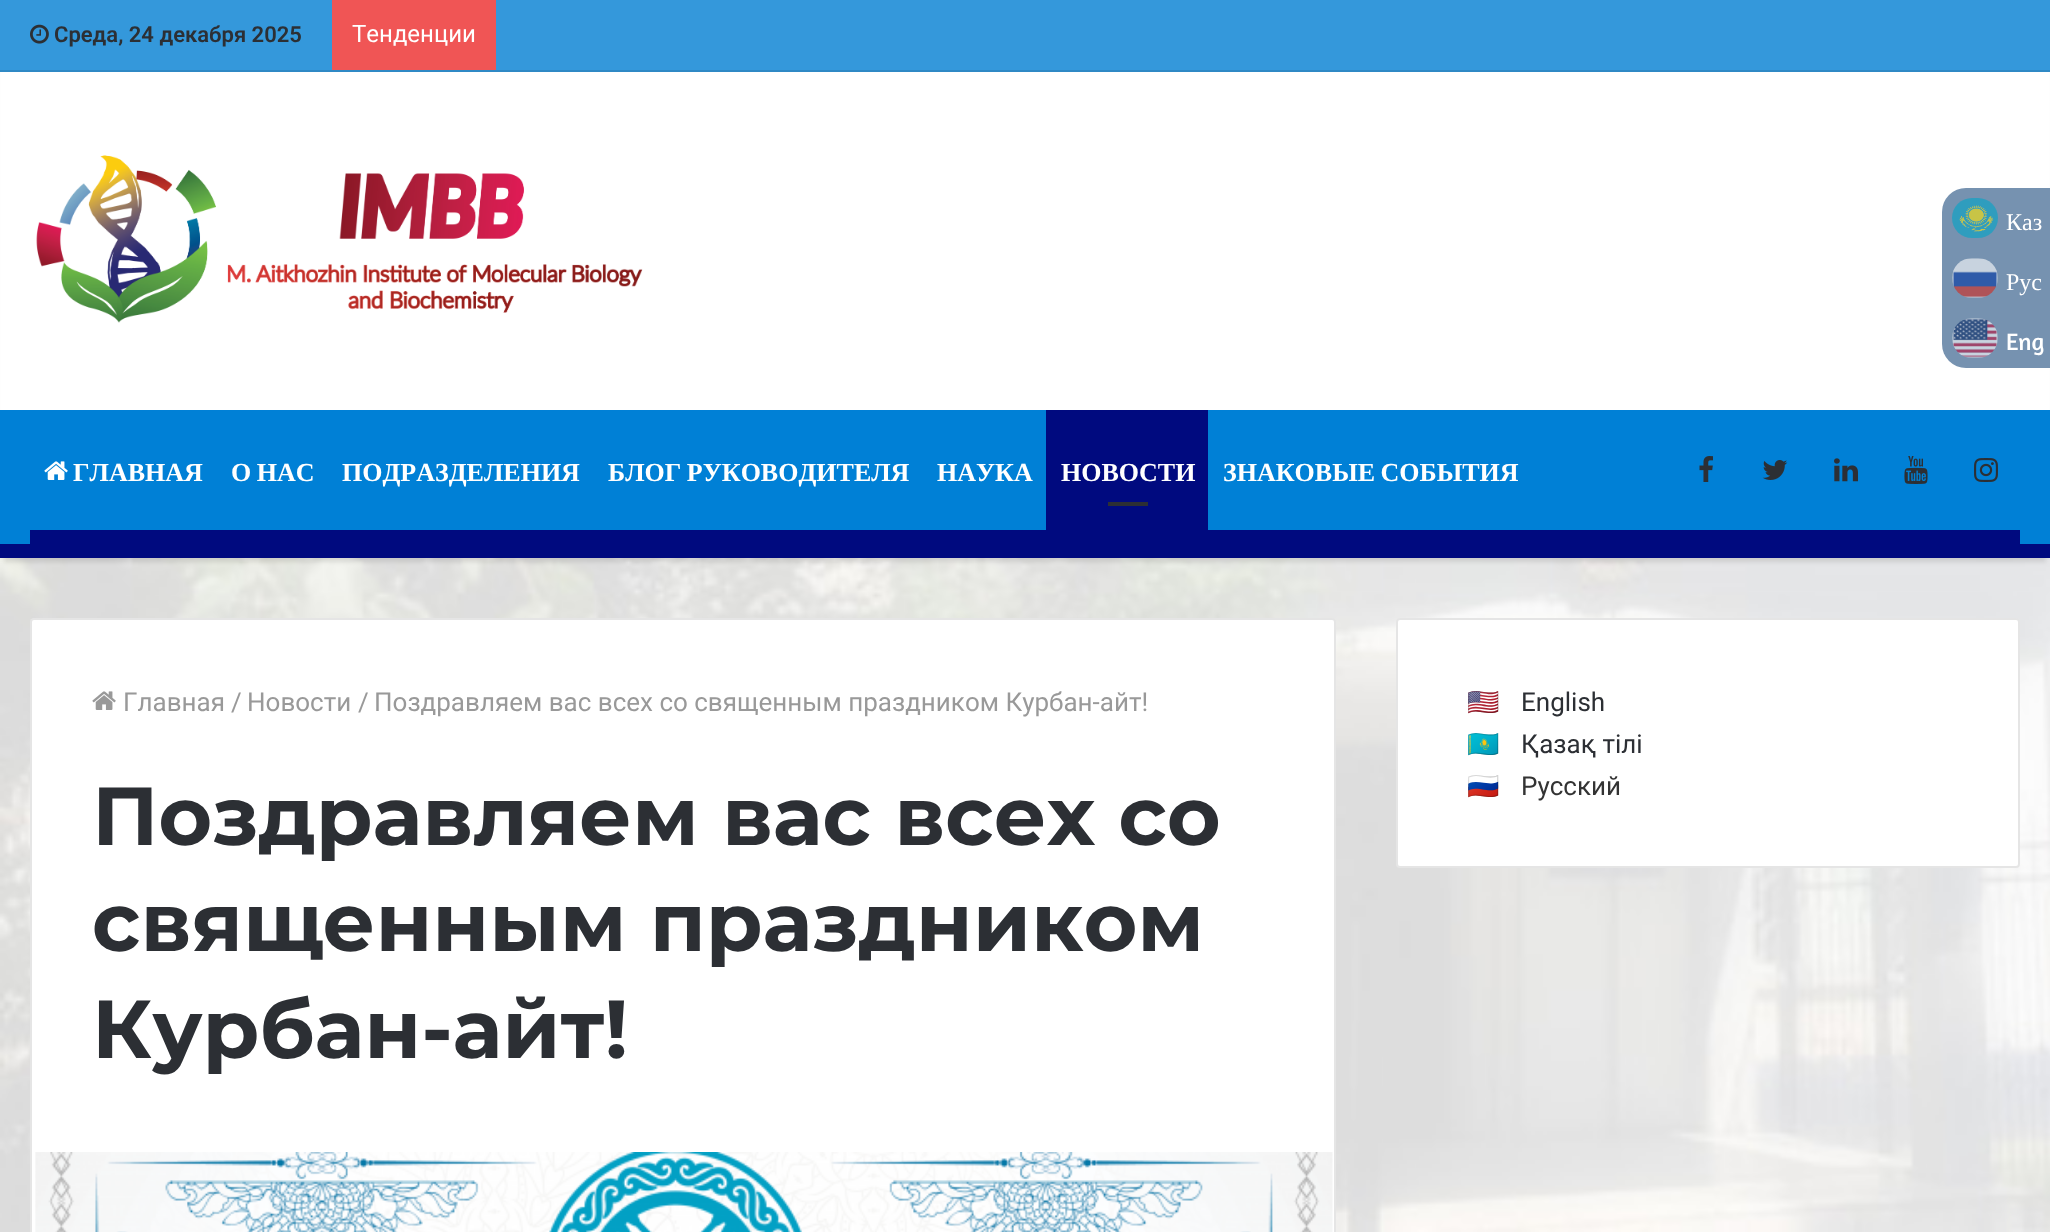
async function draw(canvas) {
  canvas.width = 2050;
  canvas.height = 1232;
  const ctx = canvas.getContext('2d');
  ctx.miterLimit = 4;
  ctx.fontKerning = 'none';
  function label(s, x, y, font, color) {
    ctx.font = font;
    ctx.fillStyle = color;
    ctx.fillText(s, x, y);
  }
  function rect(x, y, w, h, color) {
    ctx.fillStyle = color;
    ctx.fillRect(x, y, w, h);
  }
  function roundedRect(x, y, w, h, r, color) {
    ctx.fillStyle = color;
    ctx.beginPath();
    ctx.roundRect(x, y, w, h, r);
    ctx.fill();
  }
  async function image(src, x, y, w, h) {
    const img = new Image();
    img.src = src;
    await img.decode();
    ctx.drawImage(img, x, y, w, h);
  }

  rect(0, 0, 2050, 1232, '#fff');
  await image('assets/img1.png', 0, 558, 2050, 674);
  ctx.fillStyle = '#0000001a';
  ctx.filter = 'blur(2px)';
  ctx.beginPath();
  ctx.rect(4, 12, 2042, 550);
  ctx.fill();
  ctx.filter = 'none';
  rect(1, 72, 2048, 338, '#fff');
  rect(0, 0, 2050, 70, '#3498db');
  rect(0, 70, 2050, 2, '#2f89c5');
  await image('assets/img2.png', 30, 24, 19, 20);
  label('Среда, 24 декабря 2025', 54, 42, '600 22px Roboto', '#2c2f34');
  rect(332, 0, 164, 70, '#f05555');
  label('Тенденции', 352, 42, '24px Roboto', '#fff');
  await image('assets/img3.png', 36, 155, 607, 168);
  rect(0, 410, 2050, 134, '#0080d6');
  rect(0, 544, 2050, 14, '#000a7f');
  rect(30, 530, 1990, 14, '#000a7f');
  await image('assets/img4.png', 44, 461, 24, 19);
  label('ГЛАВНАЯ', 73, 481, 'bold 26px Liberation Serif', '#fff');
  ctx.wordSpacing = '-1px';
  label('О НАС', 231, 481, 'bold 26px Liberation Serif', '#fff');
  ctx.wordSpacing = '0px';
  label('ПОДРАЗДЕЛЕНИЯ', 342, 481, 'bold 26px Liberation Serif', '#fff');
  ctx.wordSpacing = '-1px';
  label('БЛОГ РУКОВОДИТЕЛЯ', 608, 481, 'bold 26px Liberation Serif', '#fff');
  ctx.wordSpacing = '0px';
  label('НАУКА', 937, 481, 'bold 26px Liberation Serif', '#fff');
  rect(1046, 410, 162, 120, '#000a7f');
  label('НОВОСТИ', 1061, 481, 'bold 26px Liberation Serif', '#fff');
  rect(1108, 502, 40, 4, '#2c2f34');
  ctx.wordSpacing = '-1px';
  label('ЗНАКОВЫЕ СОБЫТИЯ', 1223, 481, 'bold 26px Liberation Serif', '#fff');
  await image('assets/img5.png', 1699, 456, 14, 26);
  await image('assets/img6.png', 1762, 460, 26, 20);
  await image('assets/img7.png', 1834, 458, 24, 24);
  await image('assets/img8.png', 1904, 456, 24, 28);
  await image('assets/img9.png', 1974, 458, 24, 24);
  roundedRect(30, 618, 1306, 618, 4, '#fff');
  ctx.beginPath();
  ctx.roundRect(31, 619, 1304, 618, 3);
  ctx.strokeStyle = '#0000001a';
  ctx.lineWidth = 2;
  ctx.stroke();
  await image('assets/img10.png', 92, 691, 24, 19);
  ctx.wordSpacing = '0px';
  label('Главная', 123, 711, '26px Roboto', '#999');
  label('/', 231, 711, '26px Roboto', '#999');
  label('Новости', 247, 711, '26px Roboto', '#999');
  label('/', 358, 711, '26px Roboto', '#999');
  label('Поздравляем вас всех со священным праздником Курбан-айт!', 374, 711, '26px Roboto', '#999');
  label('Поздравляем вас всех со', 92, 845, 'bold 82px Montserrat', '#2c2f34');
  label('священным праздником', 92, 951, 'bold 82px Montserrat', '#2c2f34');
  label('Курбан-айт!', 92, 1058, 'bold 82px Montserrat', '#2c2f34');
  await image('assets/img11.png', 35, 1152, 1298, 80);
  roundedRect(1396, 618, 624, 250, 4, '#fff');
  ctx.beginPath();
  ctx.roundRect(1397, 619, 622, 248, 3);
  ctx.stroke();
  label('🇺🇸', 1467, 711, '26px Noto Color Emoji', '#2c2f34');
  label('English', 1521, 711, '26px Roboto', '#2c2f34');
  label('🇰🇿', 1467, 753, '26px Noto Color Emoji', '#2c2f34');
  label('Қазақ тілі', 1521, 753, '26px Roboto', '#2c2f34');
  label('🇷🇺', 1467, 795, '26px Noto Color Emoji', '#2c2f34');
  label('Русский', 1521, 795, '26px Roboto', '#333');
  roundedRect(1942, 188, 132, 180, 24, '#7692b0');
  await image('assets/img12.png', 1952, 198, 46, 40);
  label('Каз', 2006, 230, '24px Liberation Serif', '#fff');
  await image('assets/img13.png', 1952, 258, 46, 40);
  label('Рус', 2006, 290, '24px Liberation Serif', '#fff');
  await image('assets/img14.png', 1952, 318, 46, 40);
  label('Eng', 2006, 350, '24px Amaranth', '#fff');
}

draw(document.querySelector('canvas'));
